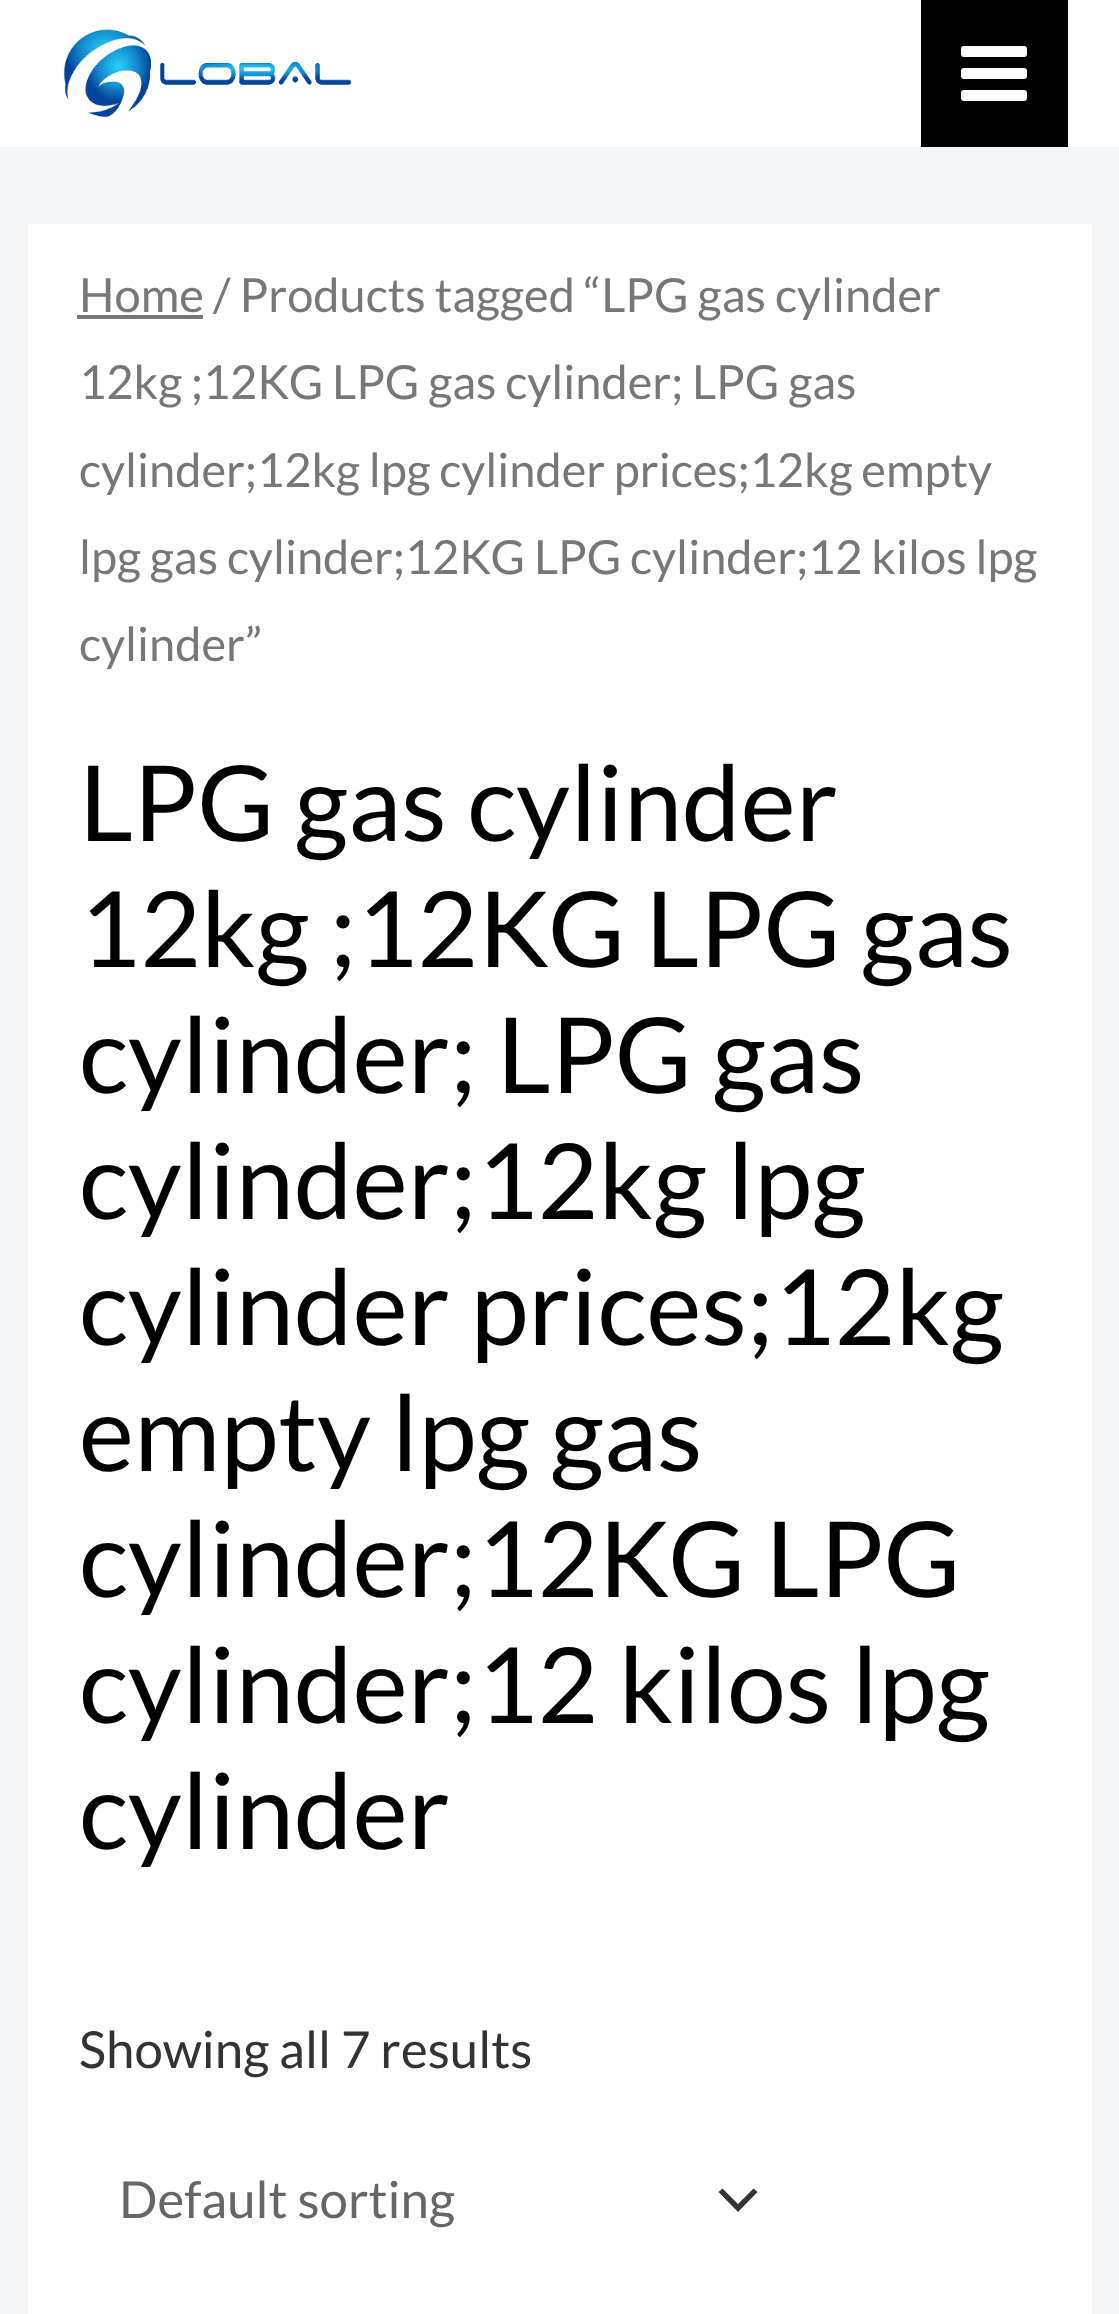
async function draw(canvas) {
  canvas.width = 1119;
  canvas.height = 2314;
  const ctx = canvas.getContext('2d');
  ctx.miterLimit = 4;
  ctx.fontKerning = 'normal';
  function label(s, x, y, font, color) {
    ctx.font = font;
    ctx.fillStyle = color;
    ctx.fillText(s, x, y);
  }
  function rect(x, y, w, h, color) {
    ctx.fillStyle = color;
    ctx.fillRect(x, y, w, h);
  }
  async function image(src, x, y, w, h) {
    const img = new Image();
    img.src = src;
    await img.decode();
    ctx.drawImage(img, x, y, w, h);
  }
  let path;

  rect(0, 0, 1119, 2314, '#f5f7f9');
  rect(0, 0, 1119, 147, '#fff');
  await image('assets/img1.png', 63, 29, 289, 89);
  rect(921, 0, 147, 147, '#000');
  await image('assets/img2.png', 961, 46, 66, 55);
  rect(28, 224, 1064, 2090, '#fff');
  rect(77, 315, 126, 4, '#777');
  label('Home / Products tagged “LPG gas cylinder', 79, 312, '47px Lato', '#777');
  ctx.wordSpacing = '-0.25px';
  label('12kg ;12KG LPG gas cylinder; LPG gas', 79, 399, '47px Lato', '#777');
  ctx.wordSpacing = '-0.5px';
  label('cylinder;12kg lpg cylinder prices;12kg empty', 79, 487, '47px Lato', '#777');
  ctx.wordSpacing = '-0.25px';
  label('lpg gas cylinder;12KG LPG cylinder;12 kilos lpg', 79, 574, '47px Lato', '#777');
  ctx.wordSpacing = '0px';
  label('cylinder”', 79, 661, '47px Lato', '#777');
  label('LPG gas cylinder', 79, 841, '105px Lato', '#000');
  label('12kg ;12KG LPG gas', 79, 967, '105px Lato', '#000');
  label('cylinder; LPG gas', 79, 1093, '105px Lato', '#000');
  label('cylinder;12kg lpg', 79, 1219, '105px Lato', '#000');
  label('cylinder prices;12kg', 79, 1345, '105px Lato', '#000');
  label('empty lpg gas', 79, 1471, '105px Lato', '#000');
  label('cylinder;12KG LPG', 79, 1597, '105px Lato', '#000');
  label('cylinder;12 kilos lpg', 79, 1723, '105px Lato', '#000');
  label('cylinder', 79, 1849, '105px Lato', '#000');
  label('Showing all 7 results', 79, 2068, '51px Lato', '#333');
  path = new Path2D('M718.5 2192L738 2212L757.5 2192L753.5 2188.5L738 2204L722.5 2188.5Z');
  ctx.fill(path);
  label('Default sorting', 119, 2218, '51px Lato', '#666');
}

draw(document.querySelector('canvas'));
